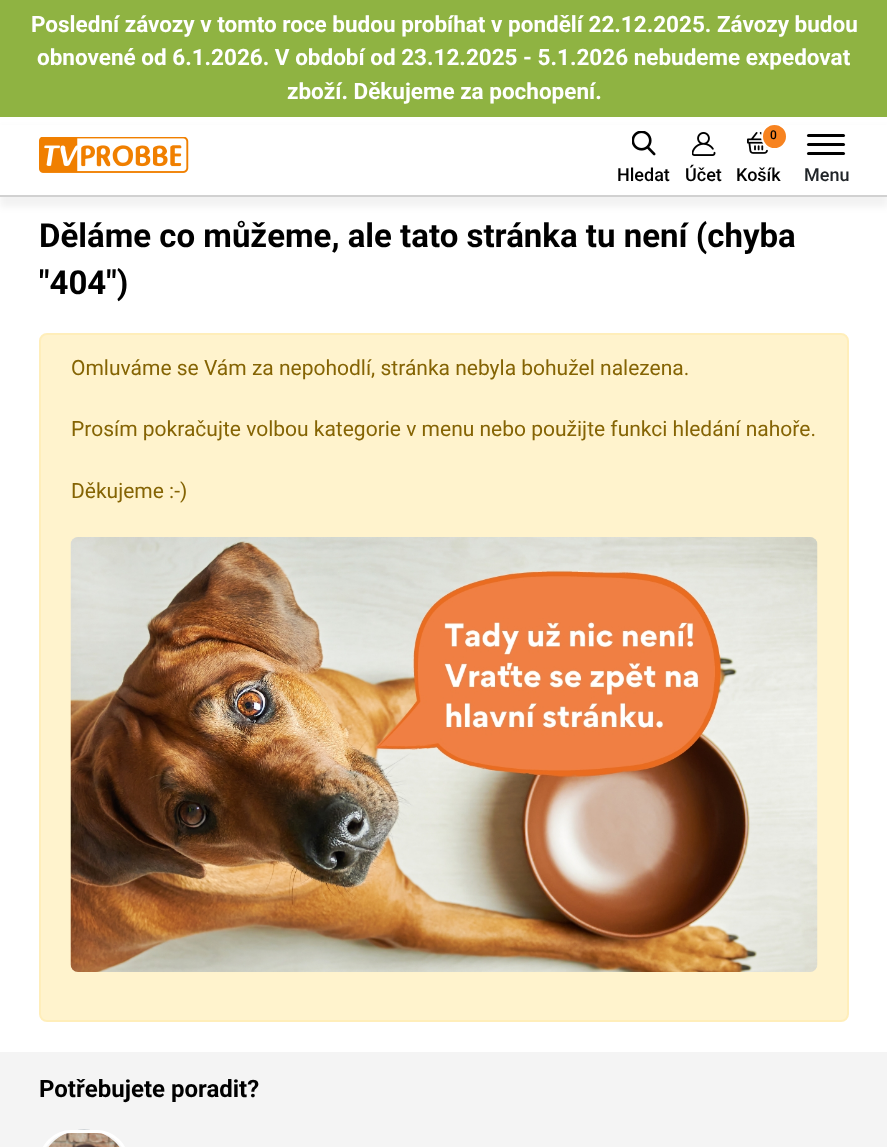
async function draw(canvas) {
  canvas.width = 887;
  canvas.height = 1147;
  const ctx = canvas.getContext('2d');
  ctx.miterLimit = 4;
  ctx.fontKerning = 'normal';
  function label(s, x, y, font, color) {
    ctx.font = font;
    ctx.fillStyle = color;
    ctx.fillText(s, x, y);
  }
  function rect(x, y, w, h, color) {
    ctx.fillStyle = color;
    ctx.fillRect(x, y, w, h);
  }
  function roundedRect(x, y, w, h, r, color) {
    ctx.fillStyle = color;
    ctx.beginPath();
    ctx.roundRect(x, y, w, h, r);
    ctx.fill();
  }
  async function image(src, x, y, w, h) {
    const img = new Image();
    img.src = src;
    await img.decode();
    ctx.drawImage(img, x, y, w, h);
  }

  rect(0, 0, 887, 1147, '#fff');
  rect(0, 0, 887, 117, '#8fb342');
  label('Poslední závozy v tomto roce budou probíhat v pondělí 22.12.2025. Závozy budou', 31, 32, 'bold 22.5px Roboto', '#fff');
  label('obnovené od 6.1.2026. V období od 23.12.2025 - 5.1.2026 nebudeme expedovat', 37, 65, 'bold 22.5px Roboto', '#fff');
  label('zboží. Děkujeme za pochopení.', 287, 99, 'bold 22.5px Roboto', '#fff');
  ctx.fillStyle = '#0000000d';
  ctx.filter = 'blur(3.5px)';
  ctx.beginPath();
  ctx.rect(0, 128, 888, 79);
  ctx.fill();
  ctx.filter = 'none';
  rect(0, 125, 887, 70, '#fff');
  rect(0, 195, 887, 2, '#d1d1d1');
  await image('assets/img1.png', 39, 137, 150, 36);
  await image('assets/img2.png', 632, 131, 24, 25);
  label('Hledat', 617, 181, '500 18px Roboto', '#000');
  await image('assets/img3.png', 692, 132, 24, 24);
  label('Účet', 685, 181, '500 18px Roboto', '#000');
  await image('assets/img4.png', 747, 132, 21, 22);
  ctx.fillStyle = '#f78320';
  ctx.beginPath();
  ctx.arc(774.5, 136.5, 12.5, 0, 2 * Math.PI);
  ctx.fill();
  ctx.strokeStyle = '#fff';
  ctx.lineWidth = 2;
  ctx.stroke();
  label('0', 770, 139, '500 12px Roboto', '#000');
  label('Košík', 736, 181, '500 18px Roboto', '#000');
  roundedRect(807, 152, 38, 3, 1.5, '#000');
  roundedRect(807, 134, 38, 3, 1.5, '#000');
  roundedRect(807, 143, 38, 3, 1.5, '#000');
  label('Menu', 804, 181, '500 18px Roboto', '#212529');
  label('Děláme co můžeme, ale tato stránka tu není (chyba', 39, 247, 'bold 33px Roboto', '#000');
  label('"404")', 39, 294, 'bold 33px Roboto', '#000');
  ctx.fillStyle = '#fff3cd';
  ctx.beginPath();
  ctx.roundRect(40, 334, 808, 687, 7);
  ctx.fill();
  ctx.strokeStyle = '#ffeeba';
  ctx.stroke();
  label('Omluváme se Vám za nepohodlí, stránka nebyla bohužel nalezena.', 71, 375, '21px Roboto', '#856404');
  label('Prosím pokračujte volbou kategorie v menu nebo použijte funkci hledání nahoře.', 71, 436, '21px Roboto', '#856404');
  label('Děkujeme :-)', 71, 498, '21px Roboto', '#856404');
  await image('assets/img5.png', 70, 537, 748, 435);
  rect(0, 1052, 887, 95, '#f4f4f4');
  label('Potřebujete poradit?', 39, 1097, 'bold 24px Roboto', '#000');
  await image('assets/img6.png', 48, 1129, 72, 18);
  ctx.beginPath();
  ctx.roundRect(40.5, 1131.5, 87, 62, 43.5);
  ctx.strokeStyle = '#fff';
  ctx.lineWidth = 3;
  ctx.stroke();
}

draw(document.querySelector('canvas'));
